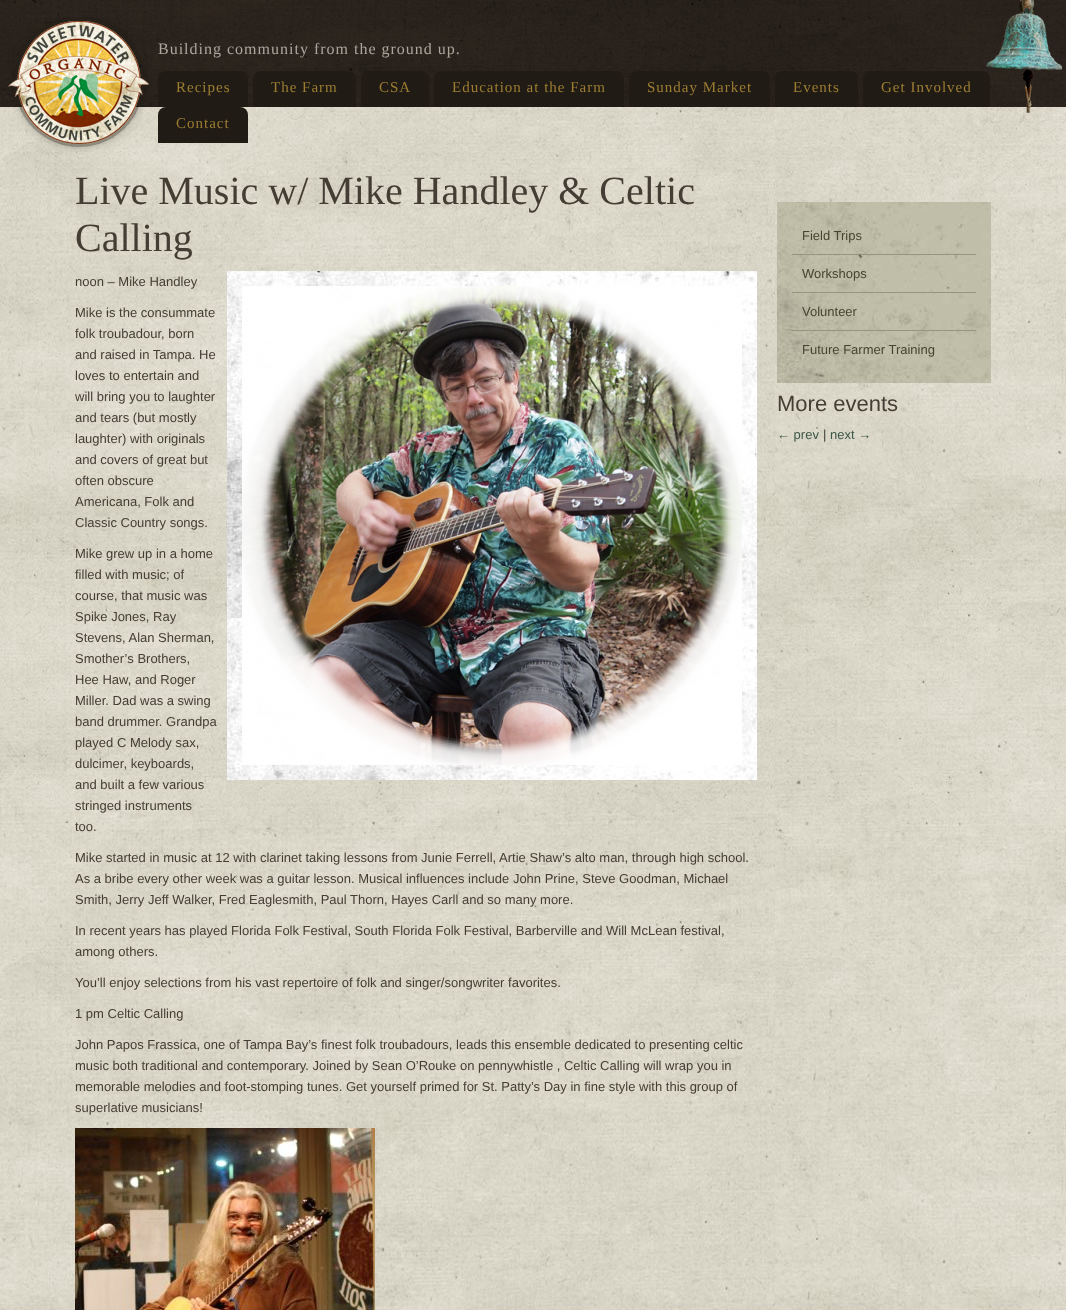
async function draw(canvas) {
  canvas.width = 1066;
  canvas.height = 1310;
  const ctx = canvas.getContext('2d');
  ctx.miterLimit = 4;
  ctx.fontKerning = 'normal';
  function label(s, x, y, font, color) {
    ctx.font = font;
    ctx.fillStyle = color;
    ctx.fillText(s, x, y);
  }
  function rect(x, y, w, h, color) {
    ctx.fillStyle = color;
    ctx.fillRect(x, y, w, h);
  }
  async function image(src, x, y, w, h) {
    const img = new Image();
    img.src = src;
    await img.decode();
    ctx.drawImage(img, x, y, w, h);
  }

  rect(0, 0, 1066, 1310, '#fff');
  await image('assets/img1.png', 0, 107, 1066, 1203);
  await image('assets/img2.png', 0, 0, 1066, 107);
  await image('assets/img3.png', 8, 17, 141, 135);
  ctx.letterSpacing = '1px';
  label('Building community from the ground up.', 158, 54, '16px Liberation Serif', '#aca69b');
  ctx.fillStyle = '#211b16';
  ctx.beginPath();
  ctx.roundRect(863, 71, 127, 36, [8, 8, 0, 0]);
  ctx.fill();
  await image('assets/img4.png', 986, 0, 76, 113);
  ctx.beginPath();
  ctx.roundRect(158, 71, 90, 36, [8, 8, 0, 0]);
  ctx.fill();
  label('Recipes', 176, 92, '15px Liberation Serif', '#9d7e31');
  ctx.fillStyle = '#211b16';
  ctx.beginPath();
  ctx.roundRect(253, 71, 103, 36, [8, 8, 0, 0]);
  ctx.fill();
  label('The Farm', 271, 92, '15px Liberation Serif', '#9d7e31');
  ctx.fillStyle = '#211b16';
  ctx.beginPath();
  ctx.roundRect(361, 71, 68, 36, [8, 8, 0, 0]);
  ctx.fill();
  label('CSA', 379, 92, '15px Liberation Serif', '#9d7e31');
  ctx.fillStyle = '#211b16';
  ctx.beginPath();
  ctx.roundRect(434, 71, 190, 36, [8, 8, 0, 0]);
  ctx.fill();
  label('Education at the Farm', 452, 92, '15px Liberation Serif', '#9d7e31');
  ctx.fillStyle = '#211b16';
  ctx.beginPath();
  ctx.roundRect(629, 71, 141, 36, [8, 8, 0, 0]);
  ctx.fill();
  label('Sunday Market', 647, 92, '15px Liberation Serif', '#9d7e31');
  ctx.fillStyle = '#211b16';
  ctx.beginPath();
  ctx.roundRect(775, 71, 83, 36, [8, 8, 0, 0]);
  ctx.fill();
  label('Events', 793, 92, '15px Liberation Serif', '#9d7e31');
  label('Get Involved', 881, 92, '15px Liberation Serif', '#9d7e31');
  ctx.fillStyle = '#211b16';
  ctx.beginPath();
  ctx.roundRect(158, 107, 90, 36, [8, 8, 0, 0]);
  ctx.fill();
  label('Contact', 176, 128, '15px Liberation Serif', '#9d7e31');
  ctx.letterSpacing = '0px';
  label('Live Music w/ Mike Handley & Celtic', 75, 204, '40px Liberation Serif', '#433d34');
  label('Calling', 75, 251, '40px Liberation Serif', '#433d34');
  label('noon – Mike Handley', 75, 286, '13px Liberation Sans', '#433d34');
  await image('assets/img5.png', 227, 271, 530, 509);
  await image('assets/img6.png', 242, 460, 487, 160);
  label('Mike is the consummate', 75, 317, '13px Liberation Sans', '#433d34');
  label('folk troubadour, born', 75, 338, '13px Liberation Sans', '#433d34');
  label('and raised in Tampa. He', 75, 359, '13px Liberation Sans', '#433d34');
  label('loves to entertain and', 75, 380, '13px Liberation Sans', '#433d34');
  label('will bring you to laughter', 75, 401, '13px Liberation Sans', '#433d34');
  label('and tears (but mostly', 75, 422, '13px Liberation Sans', '#433d34');
  label('laughter) with originals', 75, 443, '13px Liberation Sans', '#433d34');
  label('and covers of great but', 75, 464, '13px Liberation Sans', '#433d34');
  label('often obscure', 75, 485, '13px Liberation Sans', '#433d34');
  label('Americana, Folk and', 75, 506, '13px Liberation Sans', '#433d34');
  label('Classic Country songs.', 75, 527, '13px Liberation Sans', '#433d34');
  label('Mike grew up in a home', 75, 558, '13px Liberation Sans', '#433d34');
  label('filled with music; of', 75, 579, '13px Liberation Sans', '#433d34');
  label('course, that music was', 75, 600, '13px Liberation Sans', '#433d34');
  label('Spike Jones, Ray', 75, 621, '13px Liberation Sans', '#433d34');
  label('Stevens, Alan Sherman,', 75, 642, '13px Liberation Sans', '#433d34');
  label('Smother’s Brothers,', 75, 663, '13px Liberation Sans', '#433d34');
  label('Hee Haw, and Roger', 75, 684, '13px Liberation Sans', '#433d34');
  label('Miller. Dad was a swing', 75, 705, '13px Liberation Sans', '#433d34');
  label('band drummer. Grandpa', 75, 726, '13px Liberation Sans', '#433d34');
  label('played C Melody sax,', 75, 747, '13px Liberation Sans', '#433d34');
  label('dulcimer, keyboards,', 75, 768, '13px Liberation Sans', '#433d34');
  label('and built a few various', 75, 789, '13px Liberation Sans', '#433d34');
  label('stringed instruments', 75, 810, '13px Liberation Sans', '#433d34');
  label('too.', 75, 831, '13px Liberation Sans', '#433d34');
  label('Mike started in music at 12 with clarinet taking lessons from Junie Ferrell, Artie Shaw’s alto man, through high school.', 75, 862, '13px Liberation Sans', '#433d34');
  label('As a bribe every other week was a guitar lesson. Musical influences include John Prine, Steve Goodman, Michael', 75, 883, '13px Liberation Sans', '#433d34');
  label('Smith, Jerry Jeff Walker, Fred Eaglesmith, Paul Thorn, Hayes Carll and so many more.', 75, 904, '13px Liberation Sans', '#433d34');
  label('In recent years has played Florida Folk Festival, South Florida Folk Festival, Barberville and Will McLean festival,', 75, 935, '13px Liberation Sans', '#433d34');
  label('among others.', 75, 956, '13px Liberation Sans', '#433d34');
  label('You’ll enjoy selections from his vast repertoire of folk and singer/songwriter favorites.', 75, 987, '13px Liberation Sans', '#433d34');
  label('1 pm Celtic Calling', 75, 1018, '13px Liberation Sans', '#433d34');
  label('John Papos Frassica, one of Tampa Bay’s finest folk troubadours, leads this ensemble dedicated to presenting celtic', 75, 1049, '13px Liberation Sans', '#433d34');
  label('music both traditional and contemporary. Joined by Sean O’Rouke on pennywhistle , Celtic Calling will wrap you in', 75, 1070, '13px Liberation Sans', '#433d34');
  label('memorable melodies and foot-stomping tunes. Get yourself primed for St. Patty’s Day in fine style with this group of', 75, 1091, '13px Liberation Sans', '#433d34');
  label('superlative musicians!', 75, 1112, '13px Liberation Sans', '#433d34');
  await image('assets/img7.png', 75, 1128, 300, 182);
  await image('assets/img8.png', 777, 202, 214, 181);
  rect(792, 254, 184, 1, '#96947d');
  label('Field Trips', 802, 240, '13px Liberation Sans', '#46442d');
  rect(792, 292, 184, 1, '#96947d');
  label('Workshops', 802, 278, '13px Liberation Sans', '#46442d');
  rect(792, 330, 184, 1, '#96947d');
  label('Volunteer', 802, 316, '13px Liberation Sans', '#46442d');
  label('Future Farmer Training', 802, 354, '13px Liberation Sans', '#46442d');
  label('More events', 777, 411, '22px Liberation Sans', '#433d34');
  label('← prev', 777, 439, '13px Liberation Sans', '#3b5647');
  label('|', 823, 439, '13px Liberation Sans', '#433d34');
  label('next →', 830, 439, '13px Liberation Sans', '#3b5647');
}

draw(document.querySelector('canvas'));
